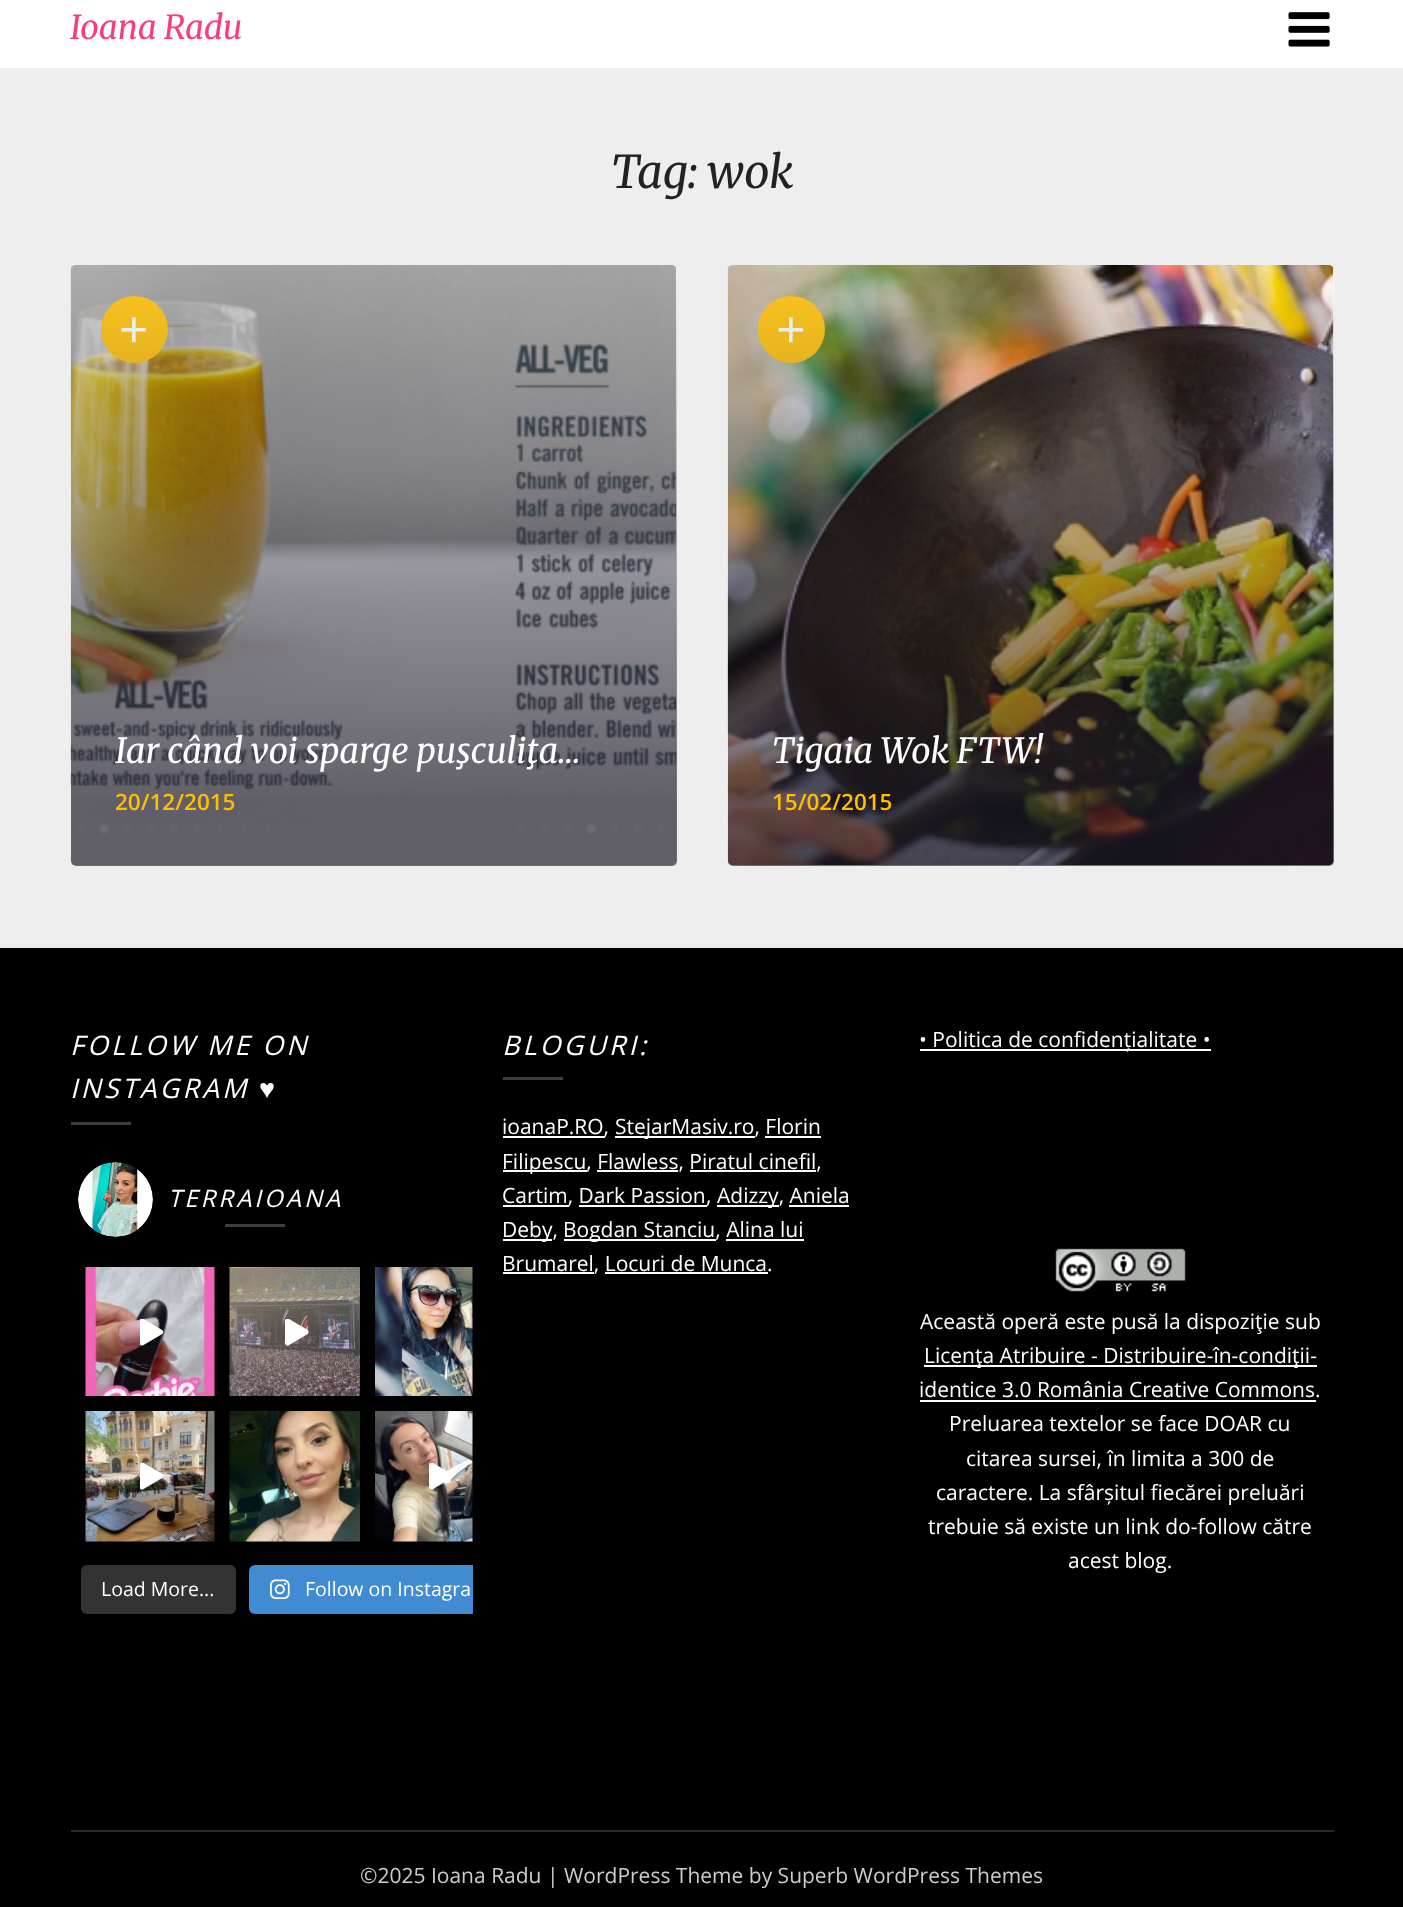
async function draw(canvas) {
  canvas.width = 1403;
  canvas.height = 1907;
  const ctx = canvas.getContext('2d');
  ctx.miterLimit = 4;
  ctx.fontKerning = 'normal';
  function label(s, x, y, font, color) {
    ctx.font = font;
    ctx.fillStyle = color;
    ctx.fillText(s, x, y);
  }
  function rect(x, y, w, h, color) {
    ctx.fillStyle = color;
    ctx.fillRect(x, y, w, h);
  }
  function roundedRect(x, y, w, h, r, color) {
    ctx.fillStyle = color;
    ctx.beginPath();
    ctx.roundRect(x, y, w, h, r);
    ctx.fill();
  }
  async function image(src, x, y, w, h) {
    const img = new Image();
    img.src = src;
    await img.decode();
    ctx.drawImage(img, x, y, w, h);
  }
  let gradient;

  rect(0, 0, 1403, 1907, '#eee');
  rect(0, 0, 1403, 68, '#fff');
  label('Ioana Radu', 70, 39, 'italic 300 33px Merriweather', '#ff3a7c');
  await image('assets/img1.png', 1288, 12, 42, 35);
  label('Tag: wok', 611, 188, 'italic 300 45px Merriweather', '#222');
  roundedRect(71, 266, 606, 600, 5, '#fff');
  await image('assets/img2.png', 70, 265, 607, 600);
  ctx.fillStyle = '#ffc71e';
  ctx.beginPath();
  ctx.arc(134.5, 329.5, 33.5, 0, 2 * Math.PI);
  ctx.fill();
  label('+', 119, 348, '52px Open Sans', '#fff');
  gradient = ctx.createLinearGradient(373, 265, 374, 866);
  gradient.addColorStop(0, '#201e2c00');
  gradient.addColorStop(0.88, '#201e2ca3');
  gradient.addColorStop(0.89, '#201e2ca6');
  ctx.fillStyle = gradient;
  ctx.beginPath();
  ctx.roundRect(71, 266, 606, 600, 5);
  ctx.fill();
  label('Iar când voi sparge puşculiţa…', 115, 763, 'italic 300 34.5px Merriweather', '#fff');
  label('20/12/2015', 115, 810, '600 22.5px Open Sans', '#ffbf00');
  roundedRect(728, 266, 606, 600, 5, '#fff');
  await image('assets/img3.png', 727, 265, 607, 600);
  ctx.fillStyle = '#ffc71e';
  ctx.beginPath();
  ctx.arc(791.5, 329.5, 33.5, 0, 2 * Math.PI);
  ctx.fill();
  label('+', 776, 348, '52px Open Sans', '#fff');
  gradient = ctx.createLinearGradient(1031, 265, 1031, 866);
  gradient.addColorStop(0, '#201e2c00');
  gradient.addColorStop(0.88, '#201e2ca3');
  gradient.addColorStop(0.89, '#201e2ca6');
  ctx.fillStyle = gradient;
  ctx.beginPath();
  ctx.roundRect(728, 266, 606, 600, 5);
  ctx.fill();
  label('Tigaia Wok FTW!', 772, 763, 'italic 300 34.5px Merriweather', '#fff');
  label('15/02/2015', 772, 810, '600 22.5px Open Sans', '#ffbf00');
  rect(0, 948, 1403, 959, '#000');
  ctx.letterSpacing = '3px';
  label('FOLLOW ME ON', 70, 1055, 'italic 27px Open Sans', '#fff');
  label('INSTAGRAM', 70, 1098, 'italic 27px Open Sans', '#fff');
  label('♥', 259, 1098, 'italic 27px Liberation Serif', '#fff');
  rect(71, 1122, 60, 3, '#3d3d3d');
  await image('assets/img4.png', 78, 1162, 75, 75);
  label('TERRAIOANA', 168, 1207, 'italic 24px Open Sans', '#fff');
  rect(225, 1224, 60, 3, '#3d3d3d');
  await image('assets/img5.png', 85, 1267, 130, 129);
  await image('assets/img6.png', 140, 1319, 24, 27);
  await image('assets/img7.png', 229, 1267, 131, 129);
  await image('assets/img8.png', 285, 1319, 24, 27);
  await image('assets/img9.png', 375, 1267, 98, 129);
  await image('assets/img10.png', 85, 1411, 130, 131);
  await image('assets/img11.png', 140, 1463, 23, 27);
  await image('assets/img12.png', 229, 1411, 131, 131);
  await image('assets/img13.png', 375, 1411, 98, 131);
  await image('assets/img14.png', 429, 1463, 24, 27);
  roundedRect(81, 1565, 155, 49, 6, '#333');
  ctx.letterSpacing = '0px';
  label('Load More...', 101, 1596, '19.5px Open Sans', '#fff');
  ctx.fillStyle = '#408bd1';
  ctx.beginPath();
  ctx.roundRect(249, 1565, 224, 49, [6, 0, 0, 6]);
  ctx.fill();
  await image('assets/img15.png', 270, 1579, 20, 20);
  label('Follow on Instagra', 305, 1596, '19.5px Open Sans', '#fff');
  ctx.letterSpacing = '3px';
  label('BLOGURI:', 502, 1055, 'italic 27px Open Sans', '#fff');
  rect(503, 1077, 60, 3, '#3d3d3d');
  rect(503, 1136, 102, 2, '#fff');
  ctx.letterSpacing = '0px';
  label('ioanaP.RO,', 502, 1134, '21px Open Sans', '#fff');
  rect(615, 1136, 140, 2, '#fff');
  label('StejarMasiv.ro, Florin', 615, 1134, '21px Open Sans', '#fff');
  rect(503, 1170, 84, 2, '#fff');
  label('Filipescu, Flawless, Piratul cinefil,', 502, 1169, '21px Open Sans', '#fff');
  rect(765, 1136, 56, 2, '#fff');
  rect(597, 1170, 81, 2, '#fff');
  rect(690, 1170, 126, 2, '#fff');
  rect(503, 1205, 66, 2, '#fff');
  label('Cartim, Dark Passion', 502, 1203, '21px Open Sans', '#fff');
  rect(579, 1205, 128, 2, '#fff');
  label(',', 706, 1203, '21px Open Sans', '#fff');
  rect(717, 1205, 62, 2, '#fff');
  label('Adizzy, Aniela', 717, 1203, '21px Open Sans', '#fff');
  rect(503, 1239, 49, 2, '#fff');
  label('Deby,', 502, 1237, '21px Open Sans', '#fff');
  rect(789, 1205, 60, 2, '#fff');
  rect(564, 1239, 152, 2, '#fff');
  label('Bogdan Stanciu, Alina lui', 563, 1237, '21px Open Sans', '#fff');
  rect(503, 1272, 91, 2, '#fff');
  label('Brumarel, Locuri de Munca.', 502, 1271, '21px Open Sans', '#fff');
  rect(726, 1239, 78, 2, '#fff');
  rect(605, 1272, 163, 2, '#fff');
  rect(920, 1049, 291, 2, '#fff');
  label('• Politica de confidențialitate •', 919, 1047, '21px Open Sans', '#fff');
  await image('assets/img16.png', 1054, 1247, 132, 47);
  label('Această operă este pusă la dispoziţie sub', 920, 1329, '21px Open Sans', '#fff');
  rect(924, 1365, 393, 2, '#fff');
  label('Licenţa Atribuire - Distribuire-în-condiţii-', 924, 1363, '21px Open Sans', '#fff');
  label('identice 3.0 România Creative Commons.', 919, 1397, '21px Open Sans', '#fff');
  rect(920, 1400, 396, 2, '#fff');
  label('Preluarea textelor se face DOAR cu', 949, 1431, '21px Open Sans', '#fff');
  label('citarea sursei, în limita a 300 de', 966, 1466, '21px Open Sans', '#fff');
  label('caractere. La sfârșitul fiecărei preluări', 936, 1500, '21px Open Sans', '#fff');
  label('trebuie să existe un link do-follow către', 928, 1534, '21px Open Sans', '#fff');
  label('acest blog.', 1068, 1568, '21px Open Sans', '#fff');
  rect(71, 1830, 1263, 2, '#292929');
  label('©2025 Ioana Radu | WordPress Theme by Superb WordPress Themes', 360, 1883, '21px Open Sans', '#ccc');
}

draw(document.querySelector('canvas'));
